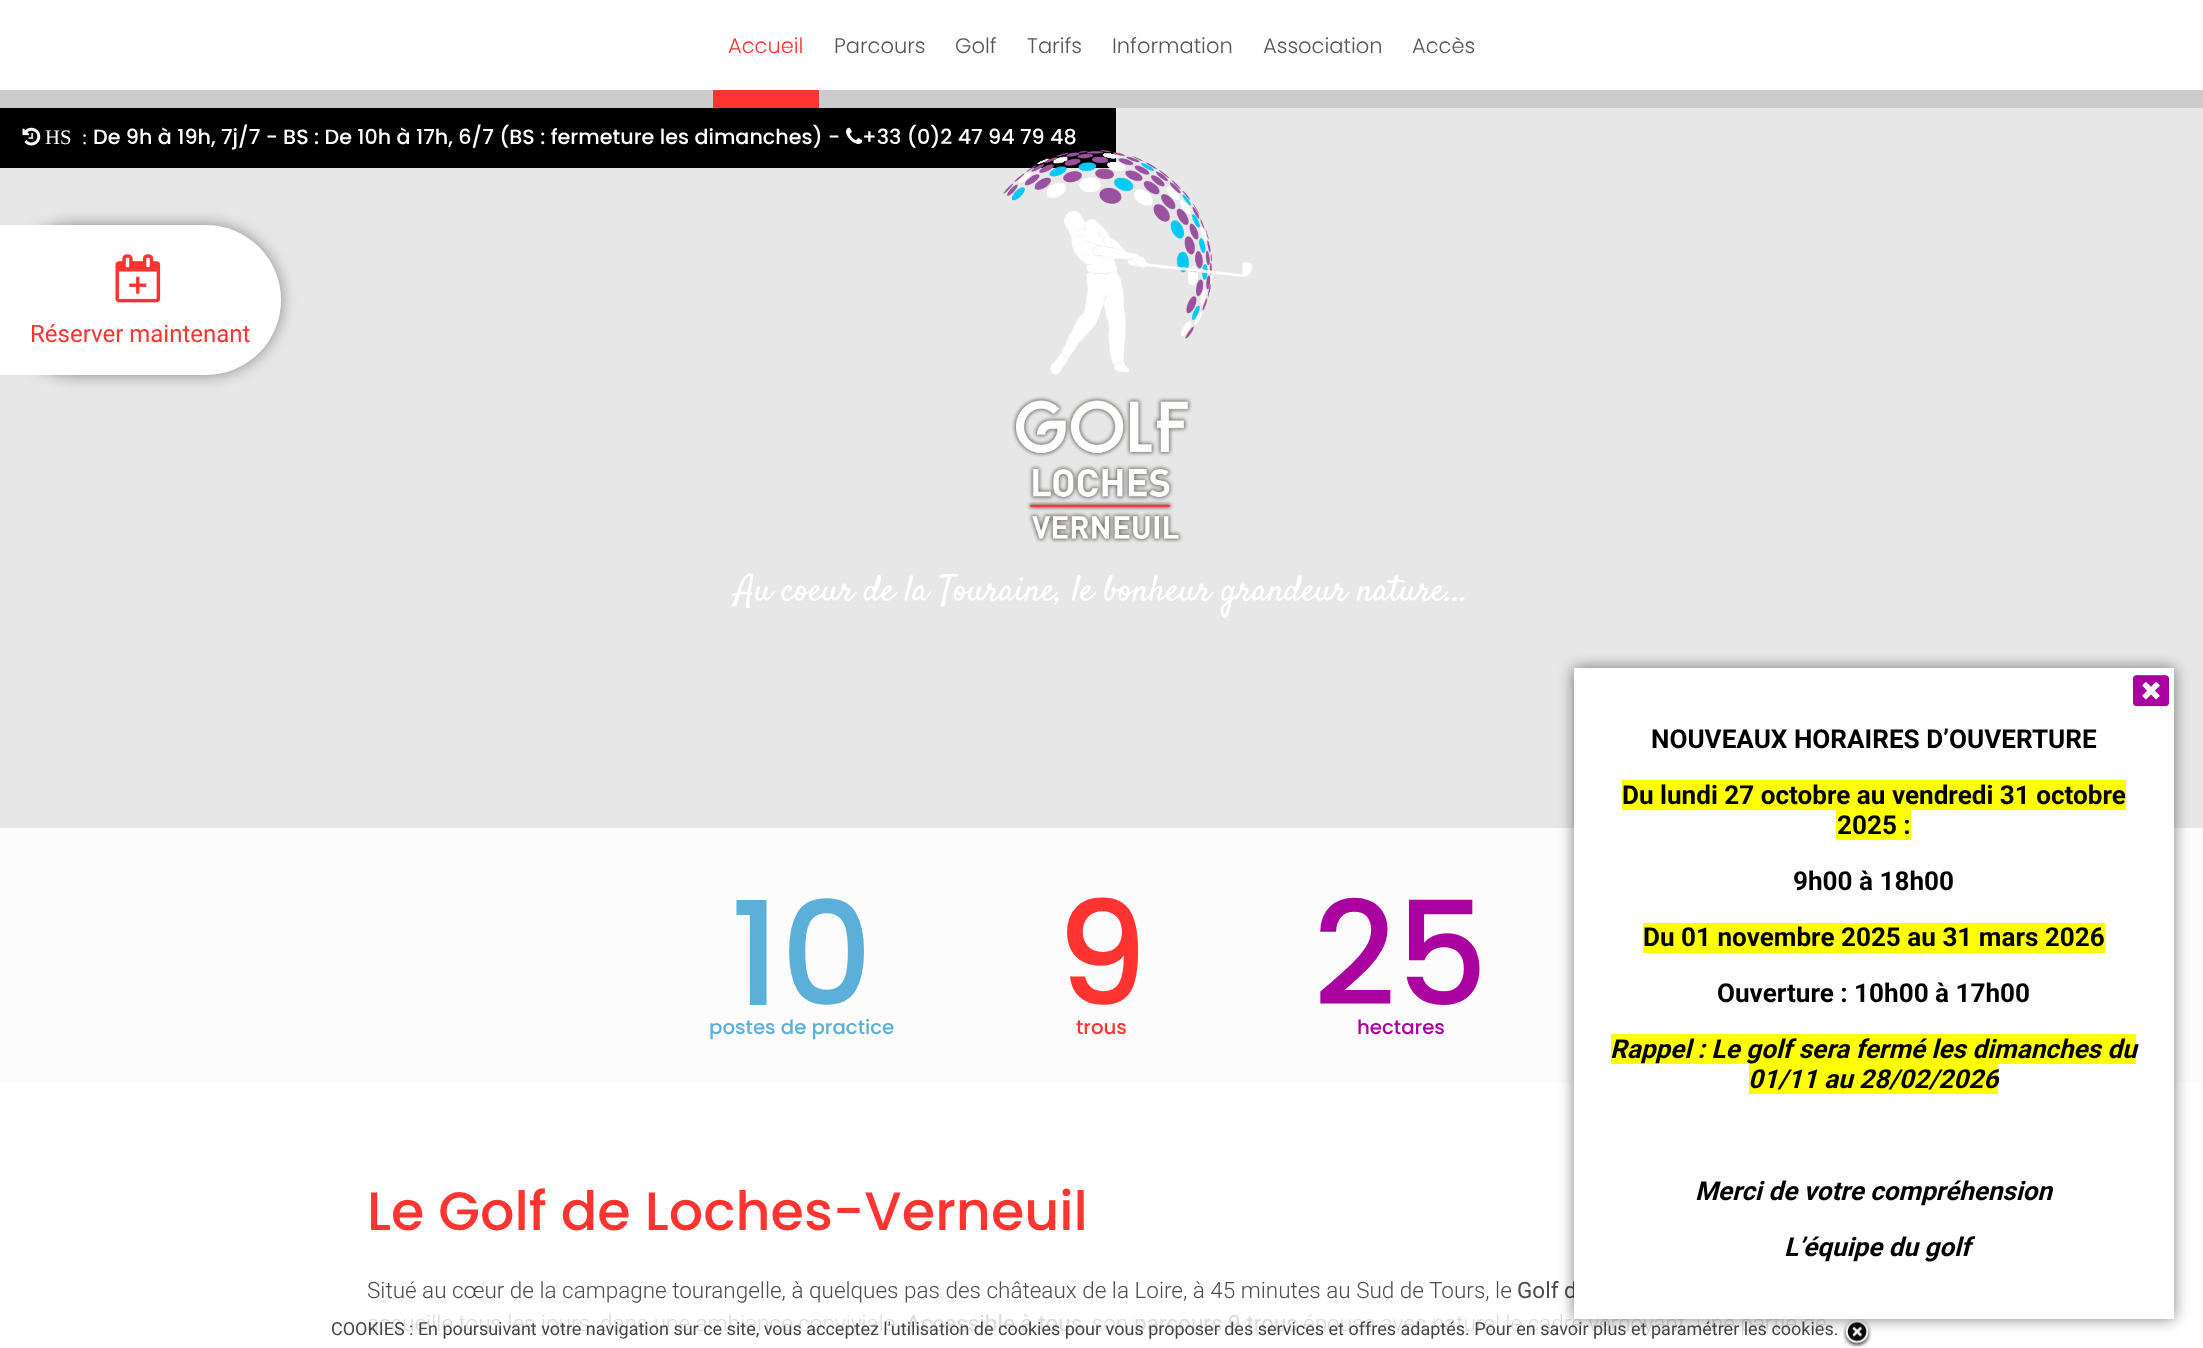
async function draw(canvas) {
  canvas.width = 2203;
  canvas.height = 1348;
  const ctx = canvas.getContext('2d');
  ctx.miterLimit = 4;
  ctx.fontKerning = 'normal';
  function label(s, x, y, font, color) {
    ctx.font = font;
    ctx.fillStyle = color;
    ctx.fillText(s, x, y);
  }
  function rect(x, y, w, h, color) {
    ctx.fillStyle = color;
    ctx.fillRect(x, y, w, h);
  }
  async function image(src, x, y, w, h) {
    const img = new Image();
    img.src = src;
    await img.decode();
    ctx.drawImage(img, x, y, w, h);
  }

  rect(0, 0, 2203, 1348, '#fff');
  rect(0, 90, 2203, 18, '#ccc');
  rect(713, 90, 106, 18, '#ff3430');
  label('Accueil', 728, 53, '300 21px Poppins', '#ff3430');
  label('Parcours', 834, 53, '300 21px Poppins', '#555');
  label('Golf', 955, 53, '300 21px Poppins', '#555');
  label('Tarifs', 1027, 53, '300 21px Poppins', '#555');
  label('Information', 1112, 53, '300 21px Poppins', '#555');
  label('Association', 1263, 53, '300 21px Poppins', '#555');
  label('Accès', 1412, 53, '300 21px Poppins', '#555');
  rect(0, 108, 2203, 975, '#e7e7e7');
  rect(0, 108, 1116, 60, '#000');
  await image('assets/img1.png', 22, 127, 19, 19);
  label('HS  :', 45, 144, '20.7px Liberation Serif', '#fff');
  label('De 9h à 19h, 7j/7 - BS : De 10h à 17h, 6/7 (BS : fermeture les dimanches) -', 93, 144, '500 20.7px Poppins', '#fff');
  await image('assets/img2.png', 846, 127, 17, 17);
  label('+33 (0)2 47 94 79 48', 862, 144, '500 20.7px Poppins', '#fff');
  await image('assets/img3.png', 1003, 150, 249, 225);
  await image('assets/img4.png', 1011, 396, 181, 147);
  label('Au coeur de la Touraine, le bonheur grandeur nature...', 735, 600, '36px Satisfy', '#fff');
  rect(0, 828, 2203, 255, '#ffffffd9');
  label('10', 730, 1005, '500 144px Poppins', '#5bafd9');
  label('postes de practice', 709, 1034, '500 19.75px Poppins', '#5bafd9');
  label('9', 1056, 1005, '500 144px Poppins', '#ff3430');
  label('trous', 1076, 1034, '500 19.75px Poppins', '#ff3430');
  label('25', 1313, 1005, '500 144px Poppins', '#a9009f');
  label('hectares', 1357, 1034, '500 19.75px Poppins', '#a9009f');
  label('Le Golf de Loches-Verneuil', 367, 1230, '500 54px Poppins', '#ff3430');
  label('Situé au cœur de la campagne tourangelle, à quelques pas des châteaux de la Loire, à 45 minutes au Sud de Tours, le', 367, 1298, '300 22.5px Roboto', '#4c4c4c');
  label('Golf d', 1517, 1298, '22.5px Roboto', '#4c4c4c');
  label('accueille tous les jours, dans une ambiance conviviale.', 367, 1331, '300 22.5px Roboto', '#dbdbdb');
  label('Accessible à tous', 906, 1331, '22.5px Roboto', '#dbdbdb');
  label(', son', 1082, 1331, '300 22.5px Roboto', '#dbdbdb');
  label('parcours 9 trous', 1134, 1331, '22.5px Roboto', '#dbdbdb');
  label('épouse avec naturel le cadre verdoyant. Une partie de', 1303, 1331, '300 22.5px Roboto', '#dbdbdb');
  ctx.fillStyle = '#00000066';
  ctx.filter = 'blur(7.5px)';
  ctx.beginPath();
  ctx.roundRect(0, 225, 281, 150, 75);
  ctx.fill();
  ctx.filter = 'none';
  ctx.fillStyle = '#fff';
  ctx.beginPath();
  ctx.roundRect(0, 225, 281, 150, [0, 75, 75, 0]);
  ctx.fill();
  await image('assets/img5.png', 115, 254, 46, 49);
  label('Réserver maintenant', 30, 342, '24px Roboto', '#ff3430');
  await image('assets/img7.png', 1843, 1319, 29, 29);
  ctx.fillStyle = '#00000080';
  ctx.filter = 'blur(7.5px)';
  ctx.beginPath();
  ctx.rect(1574, 668, 600, 651);
  ctx.fill();
  ctx.filter = 'none';
  rect(1574, 668, 600, 651, '#fff');
  await image('assets/img6.png', 2133, 675, 36, 32);
  label('NOUVEAUX HORAIRES D’OUVERTURE', 1651, 748, 'bold 26.1px Roboto', '#000');
  rect(1622, 780, 504, 30, '#ff0');
  label('Du lundi 27 octobre au vendredi 31 octobre', 1622, 804, 'bold 26.1px Roboto', '#000');
  rect(1836, 810, 75, 30, '#ff0');
  label('2025 :', 1837, 834, 'bold 26.1px Roboto', '#000');
  label('9h00 à 18h00', 1793, 890, 'bold 26.1px Roboto', '#000');
  rect(1643, 923, 462, 30, '#ff0');
  label('Du 01 novembre 2025 au 31 mars 2026', 1643, 946, 'bold 26.1px Roboto', '#000');
  label('Ouverture : 10h00 à 17h00', 1717, 1002, 'bold 26.1px Roboto', '#000');
  rect(1611, 1034, 525, 30, '#ff0');
  label('Rappel : Le golf sera fermé les dimanches du', 1610, 1058, 'italic bold 26.1px Roboto', '#000');
  rect(1749, 1064, 249, 30, '#ff0');
  label('01/11 au 28/02/2026', 1748, 1088, 'italic bold 26.1px Roboto', '#000');
  label('Merci de votre compréhension', 1695, 1200, 'italic bold 26.1px Roboto', '#000');
  label('L’équipe du golf', 1784, 1256, 'italic bold 26.1px Roboto', '#000');
  label('COOKIES : En poursuivant votre navigation sur ce site, vous acceptez l\'utilisation de cookies pour vous proposer des services et offres adaptés. Pour en savoir plus et paramétrer les cookies.', 331, 1335, '18px Roboto', '#444');
}

draw(document.querySelector('canvas'));
